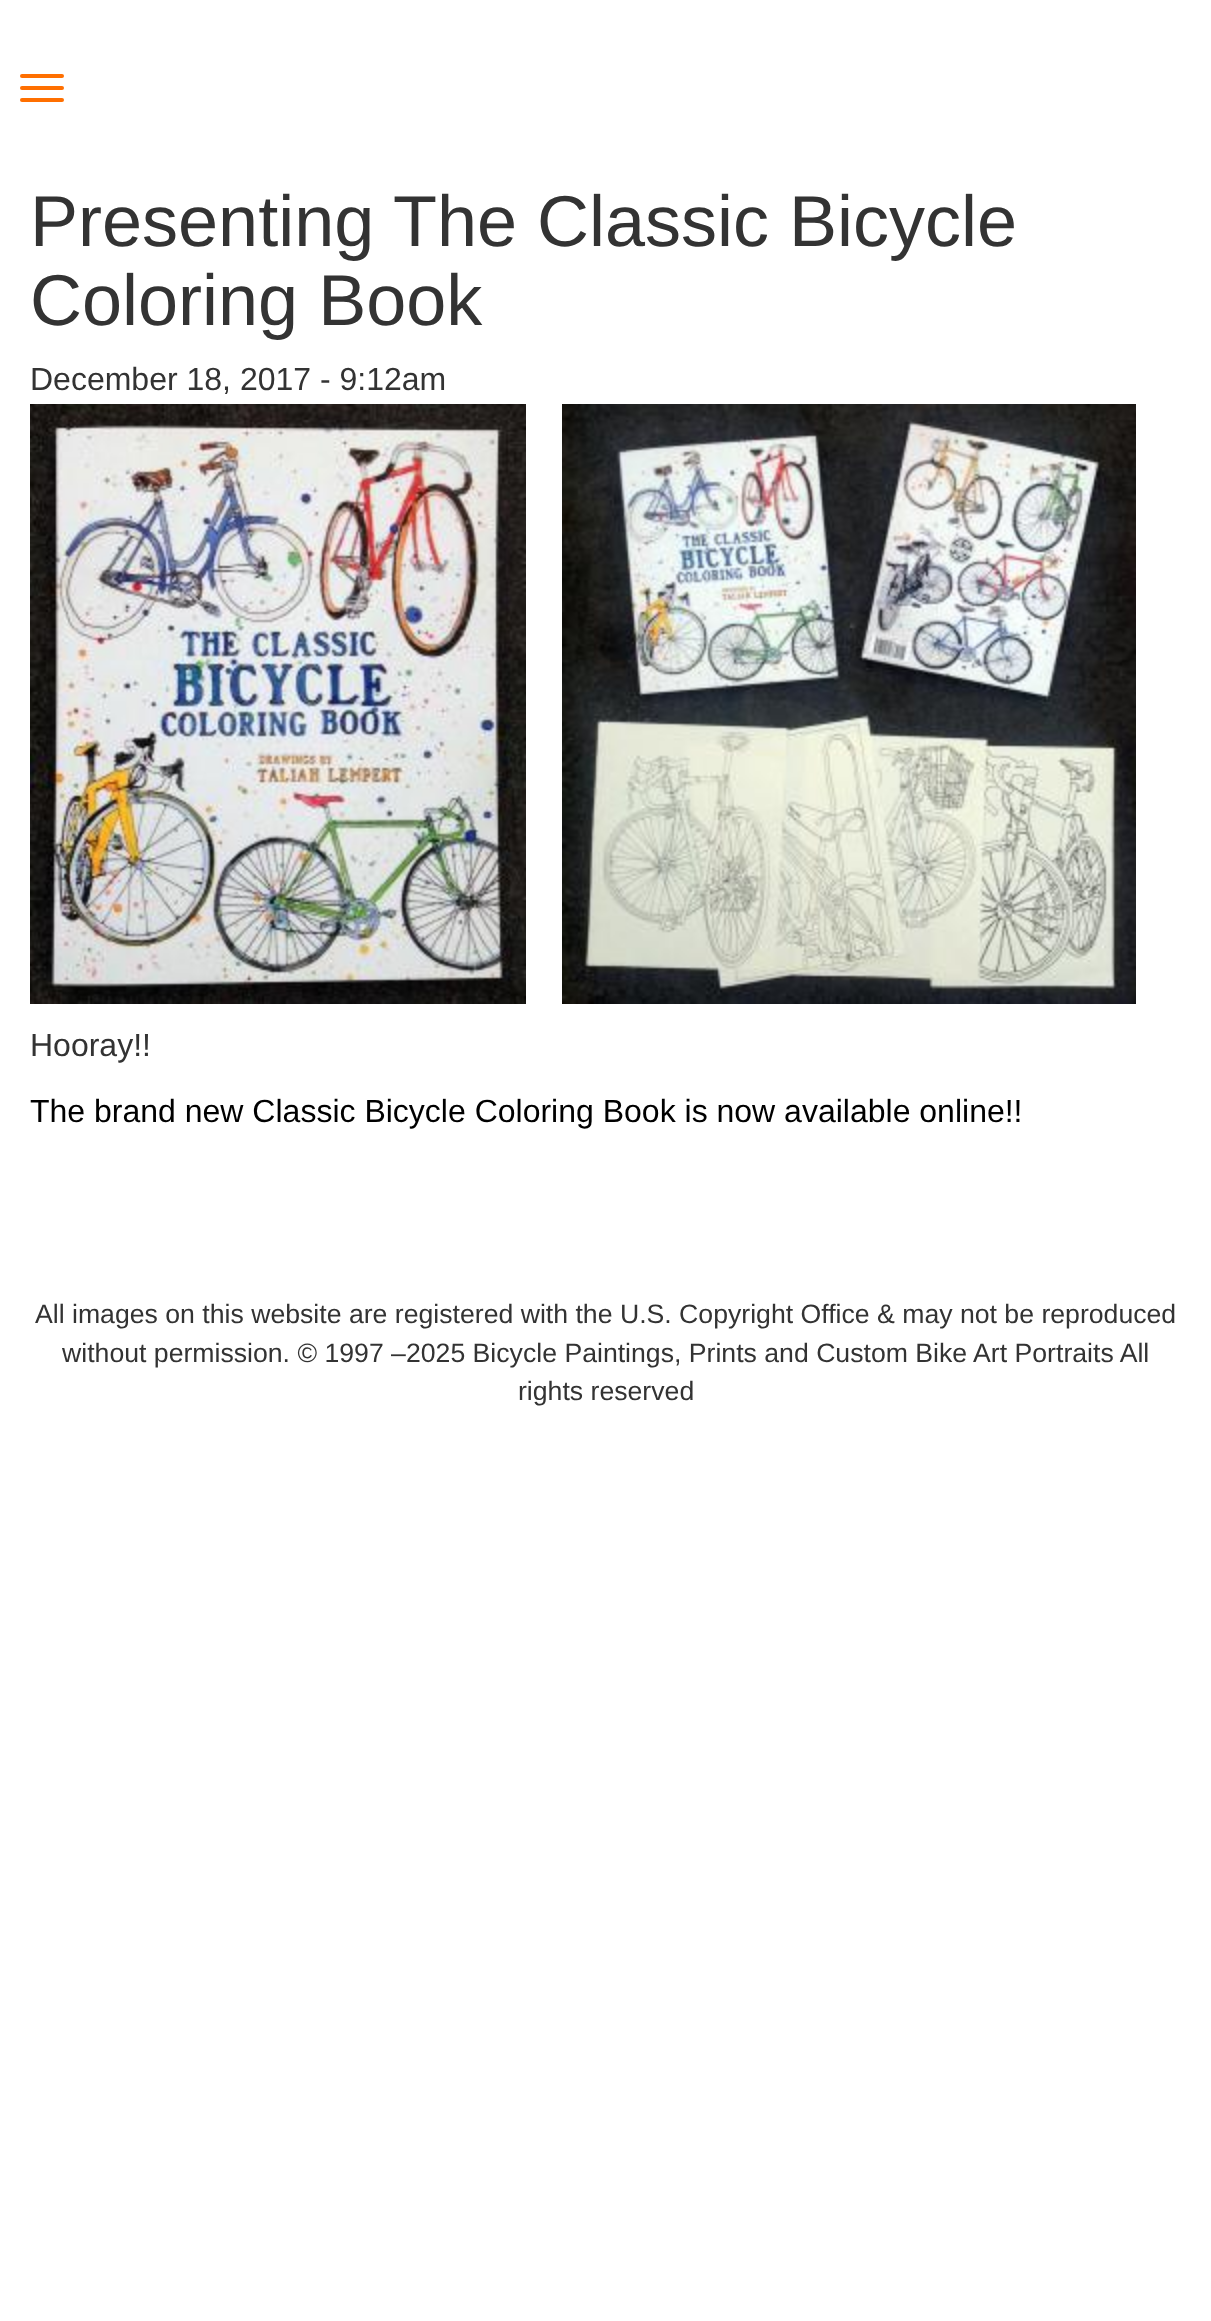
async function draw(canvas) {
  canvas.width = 1211;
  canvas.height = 2321;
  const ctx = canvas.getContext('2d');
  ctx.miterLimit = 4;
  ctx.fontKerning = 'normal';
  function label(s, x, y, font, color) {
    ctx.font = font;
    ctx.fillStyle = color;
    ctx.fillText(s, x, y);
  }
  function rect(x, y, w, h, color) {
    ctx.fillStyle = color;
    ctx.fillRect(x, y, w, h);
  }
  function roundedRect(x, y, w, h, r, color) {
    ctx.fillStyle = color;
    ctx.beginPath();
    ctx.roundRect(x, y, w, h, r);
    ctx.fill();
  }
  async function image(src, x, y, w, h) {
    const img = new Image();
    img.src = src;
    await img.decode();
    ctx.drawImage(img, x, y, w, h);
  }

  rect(0, 0, 1211, 2321, '#fff');
  roundedRect(20, 74, 44, 4, 2, '#ff6f00');
  roundedRect(20, 86, 44, 4, 2, '#ff6f00');
  roundedRect(20, 98, 44, 4, 2, '#ff6f00');
  label('Presenting The Classic Bicycle', 30, 246, '72px Liberation Sans', '#333');
  label('Coloring Book', 30, 325, '72px Liberation Sans', '#333');
  label('December 18, 2017 - 9:12am', 30, 390, '32px Liberation Sans', '#333');
  await image('assets/img1.png', 30, 404, 496, 600);
  await image('assets/img2.png', 562, 404, 574, 600);
  label('Hooray!!', 30, 1056, '32px Liberation Sans', '#333');
  label('The brand new Classic Bicycle Coloring Book is now available online!!', 30, 1122, '32px Liberation Sans', '#000');
  label('All images on this website are registered with the U.S. Copyright Office & may not be reproduced', 35, 1323, '26.65px Liberation Sans', '#333');
  label('without permission. © 1997 –2025 Bicycle Paintings, Prints and Custom Bike Art Portraits All', 62, 1362, '26.65px Liberation Sans', '#333');
  label('rights reserved', 518, 1400, '26.65px Liberation Sans', '#333');
}

draw(document.querySelector('canvas'));
